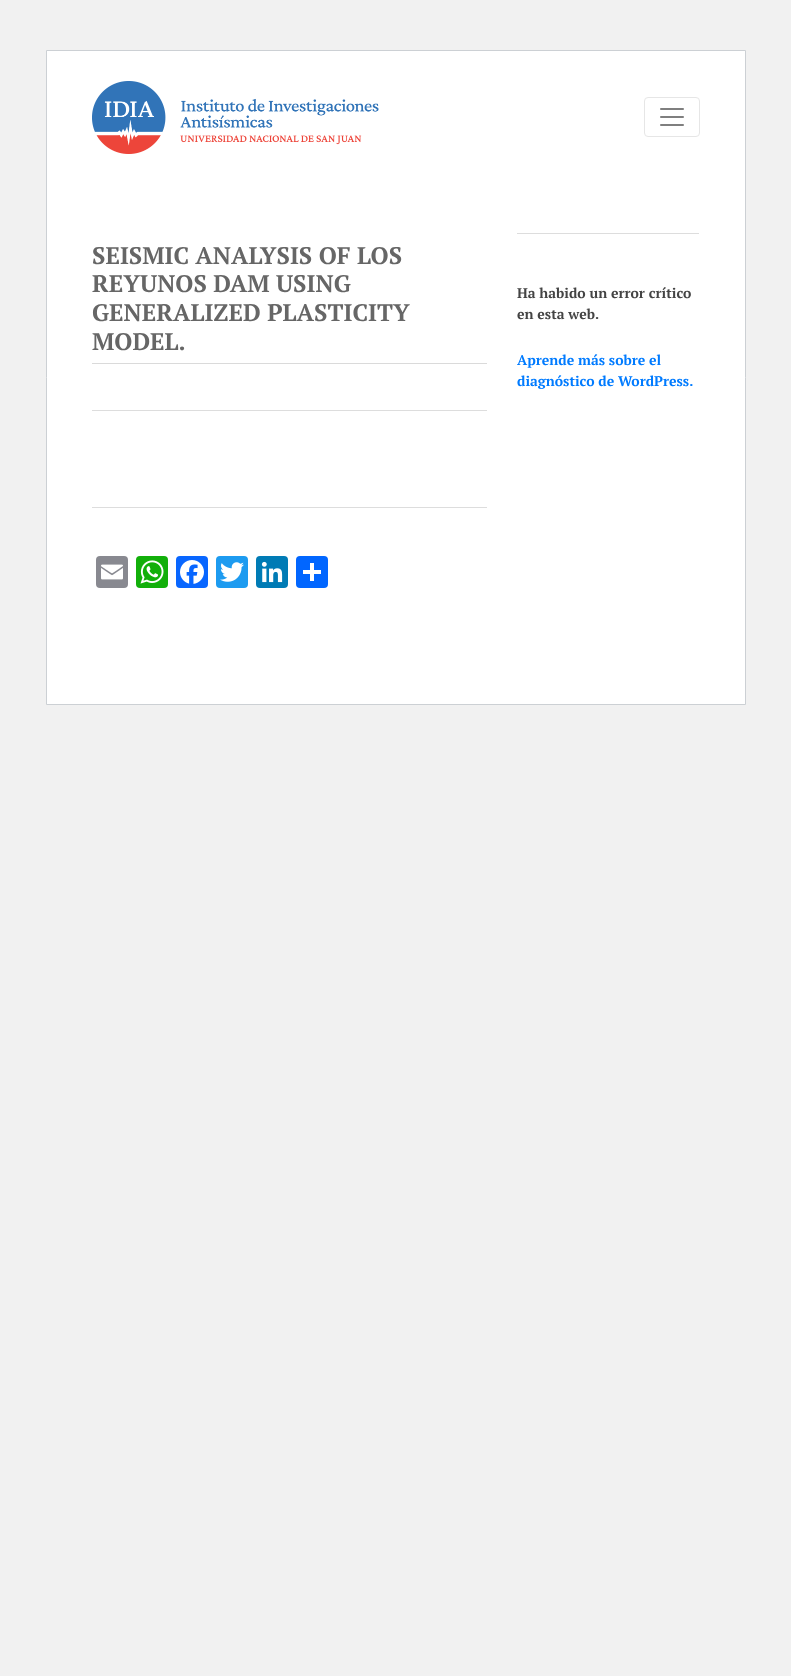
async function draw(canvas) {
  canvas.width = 791;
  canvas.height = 1676;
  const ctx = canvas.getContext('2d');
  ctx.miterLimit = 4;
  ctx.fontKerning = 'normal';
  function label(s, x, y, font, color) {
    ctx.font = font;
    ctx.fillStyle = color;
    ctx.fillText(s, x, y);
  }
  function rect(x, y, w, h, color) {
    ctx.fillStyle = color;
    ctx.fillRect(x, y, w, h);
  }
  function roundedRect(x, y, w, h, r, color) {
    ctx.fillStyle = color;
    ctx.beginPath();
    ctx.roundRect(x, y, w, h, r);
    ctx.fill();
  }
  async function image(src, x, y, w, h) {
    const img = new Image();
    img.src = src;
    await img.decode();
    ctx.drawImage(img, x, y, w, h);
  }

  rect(0, 0, 791, 1676, '#f1f1f1');
  ctx.fillStyle = '#fff';
  ctx.beginPath();
  ctx.rect(46.5, 50.5, 699, 654);
  ctx.fill();
  ctx.strokeStyle = '#ccd0d4';
  ctx.stroke();
  await image('assets/img1.png', 92, 81, 287, 73);
  ctx.beginPath();
  ctx.roundRect(644.5, 97.5, 55, 39, 3.5);
  ctx.strokeStyle = '#e6e6e6';
  ctx.stroke();
  await image('assets/img2.png', 660, 108, 24, 18);
  rect(92, 363, 395, 1, '#dadada');
  label('SEISMIC ANALYSIS OF LOS', 92, 264, 'bold 24px PT Serif', '#666');
  label('REYUNOS DAM USING', 92, 292, 'bold 24px PT Serif', '#666');
  label('GENERALIZED PLASTICITY', 92, 321, 'bold 24px PT Serif', '#666');
  label('MODEL.', 92, 350, 'bold 24px PT Serif', '#666');
  rect(92, 410, 395, 1, '#ddd');
  rect(92, 507, 395, 1, '#ddd');
  roundedRect(96, 556, 32, 32, 4, '#888990');
  await image('assets/img3.png', 101, 564, 22, 16);
  roundedRect(136, 556, 32, 32, 4, '#12af0a');
  await image('assets/img4.png', 140, 560, 24, 24);
  roundedRect(176, 556, 32, 32, 4, '#0866ff');
  await image('assets/img5.png', 180, 560, 24, 24);
  roundedRect(216, 556, 32, 32, 4, '#1d9bf0');
  await image('assets/img6.png', 220, 562, 24, 20);
  roundedRect(256, 556, 32, 32, 4, '#007bb5');
  await image('assets/img7.png', 261, 561, 22, 22);
  roundedRect(296, 556, 32, 32, 4, '#0166ff');
  rect(310, 563, 4, 18, '#fff');
  rect(303, 570, 18, 4, '#fff');
  rect(517, 233, 182, 1, '#ddd');
  label('Ha habido un error crítico', 517, 298, 'bold 14px PT Serif', '#444');
  label('en esta web.', 517, 319, 'bold 14px PT Serif', '#444');
  label('Aprende más sobre el', 517, 365, 'bold 14px PT Serif', '#007bff');
  label('diagnóstico de WordPress.', 517, 386, 'bold 14px PT Serif', '#007bff');
}

draw(document.querySelector('canvas'));
